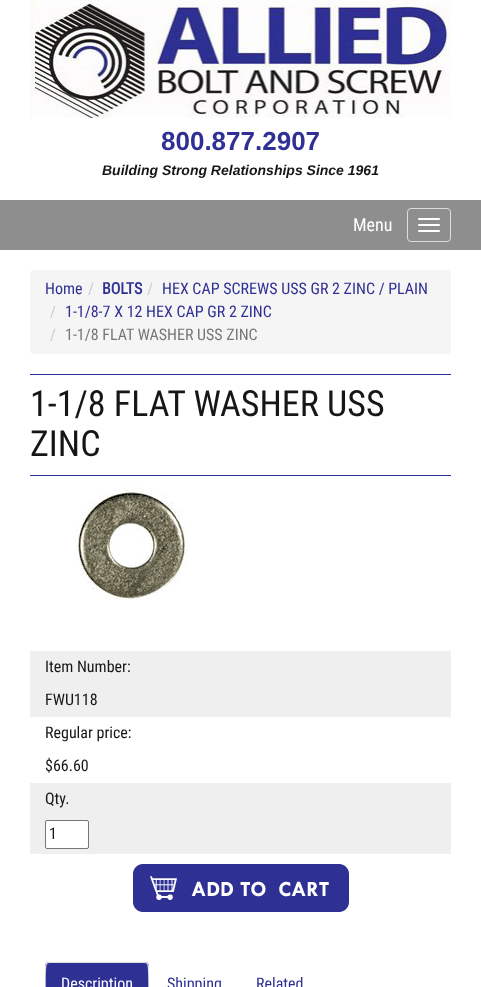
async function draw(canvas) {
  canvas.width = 481;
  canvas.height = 987;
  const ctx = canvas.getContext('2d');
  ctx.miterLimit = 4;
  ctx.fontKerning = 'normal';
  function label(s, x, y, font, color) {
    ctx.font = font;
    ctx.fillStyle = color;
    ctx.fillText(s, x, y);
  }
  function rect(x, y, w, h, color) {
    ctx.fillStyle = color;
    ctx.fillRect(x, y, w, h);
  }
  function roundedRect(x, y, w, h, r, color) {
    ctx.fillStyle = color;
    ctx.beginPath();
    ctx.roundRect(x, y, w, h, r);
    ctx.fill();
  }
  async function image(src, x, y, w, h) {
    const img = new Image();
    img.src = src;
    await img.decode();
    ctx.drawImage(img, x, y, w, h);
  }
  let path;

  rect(0, 0, 481, 987, '#fff');
  await image('assets/img1.png', 30, 0, 421, 118);
  label('800.877.2907', 161, 150, 'bold 26px Liberation Sans', '#2e3094');
  label('Building Strong Relationships Since 1961', 102, 175, 'italic bold 14px Liberation Sans', '#161616');
  rect(0, 200, 481, 50, '#8e8e8e');
  label('Menu', 353, 231, '18px Roboto Condensed', '#fff');
  ctx.beginPath();
  ctx.roundRect(407.5, 208.5, 43, 33, 3.5);
  ctx.strokeStyle = '#ddd';
  ctx.stroke();
  roundedRect(418, 218, 22, 2, 1, '#fff');
  roundedRect(418, 224, 22, 2, 1, '#fff');
  roundedRect(418, 230, 22, 2, 1, '#fff');
  roundedRect(30, 270, 421, 84, 4, '#f5f5f5');
  label('Home', 45, 294, '16px Roboto Condensed', '#2e3094');
  label('/', 88, 294, '16px Roboto Condensed', '#ccc');
  label('BOLTS', 102, 294, 'bold 16px Roboto Condensed', '#2e3094');
  label('/', 147, 294, '16px Roboto Condensed', '#ccc');
  label('HEX CAP SCREWS USS GR 2 ZINC / PLAIN', 162, 294, '16px Roboto Condensed', '#2e3094');
  label('/', 50, 317, '16px Roboto Condensed', '#ccc');
  label('1-1/8-7 X 12 HEX CAP GR 2 ZINC', 65, 317, '16px Roboto Condensed', '#2e3094');
  label('/', 50, 340, '16px Roboto Condensed', '#ccc');
  label('1-1/8 FLAT WASHER USS ZINC', 65, 340, '16px Roboto Condensed', '#777');
  rect(30, 374, 421, 1, '#2e3094');
  rect(30, 475, 421, 1, '#2e3094');
  label('1-1/8 FLAT WASHER USS', 30, 416, '36px Roboto Condensed', '#161616');
  label('ZINC', 30, 456, '36px Roboto Condensed', '#161616');
  await image('assets/img2.png', 75, 486, 113, 113);
  rect(30, 651, 421, 66, '#efefef');
  label('Item Number:', 45, 672, '16px Roboto Condensed', '#161616');
  label('FWU118', 45, 705, '16px Roboto Condensed', '#161616');
  label('Regular price:', 45, 738, '16px Roboto Condensed', '#161616');
  label('$66.60', 45, 771, '16px Roboto Condensed', '#161616');
  rect(30, 783, 421, 71, '#efefef');
  label('Qty.', 45, 804, '16px Roboto Condensed', '#161616');
  ctx.fillStyle = '#fff';
  ctx.beginPath();
  ctx.roundRect(45.5, 820.5, 43, 28, 1.5);
  ctx.fill();
  ctx.strokeStyle = '#767676';
  ctx.stroke();
  label('1', 49, 839, '16px Roboto Condensed', '#161616');
  await image('assets/img3.png', 133, 864, 216, 48);
  ctx.fillStyle = '#2e3094';
  path = new Path2D('M49 962H145C147 962 149 964 149 966V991H45V966C45 964 47 962 49 962Z');
  ctx.fill(path);
  ctx.fillStyle = '#ddd';
  path = new Path2D('M49 962L46 963L47 964L49 963H145L147 964L148 963L145 962Z');
  ctx.fill(path);
  path = new Path2D('M149 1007V966C149 965 148 964 148 963L147 964C149 966 148 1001 148 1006Z');
  ctx.fill(path);
  path = new Path2D('M45 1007L46 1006C46 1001 45 966 47 964L46 963L45 966Z');
  ctx.fill(path);
  label('Description', 61, 989, '16px Roboto Condensed', '#fff');
  label('Shipping', 167, 989, '16px Roboto Condensed', '#2e3094');
  label('Related', 256, 989, '16px Roboto Condensed', '#2e3094');
}

draw(document.querySelector('canvas'));
